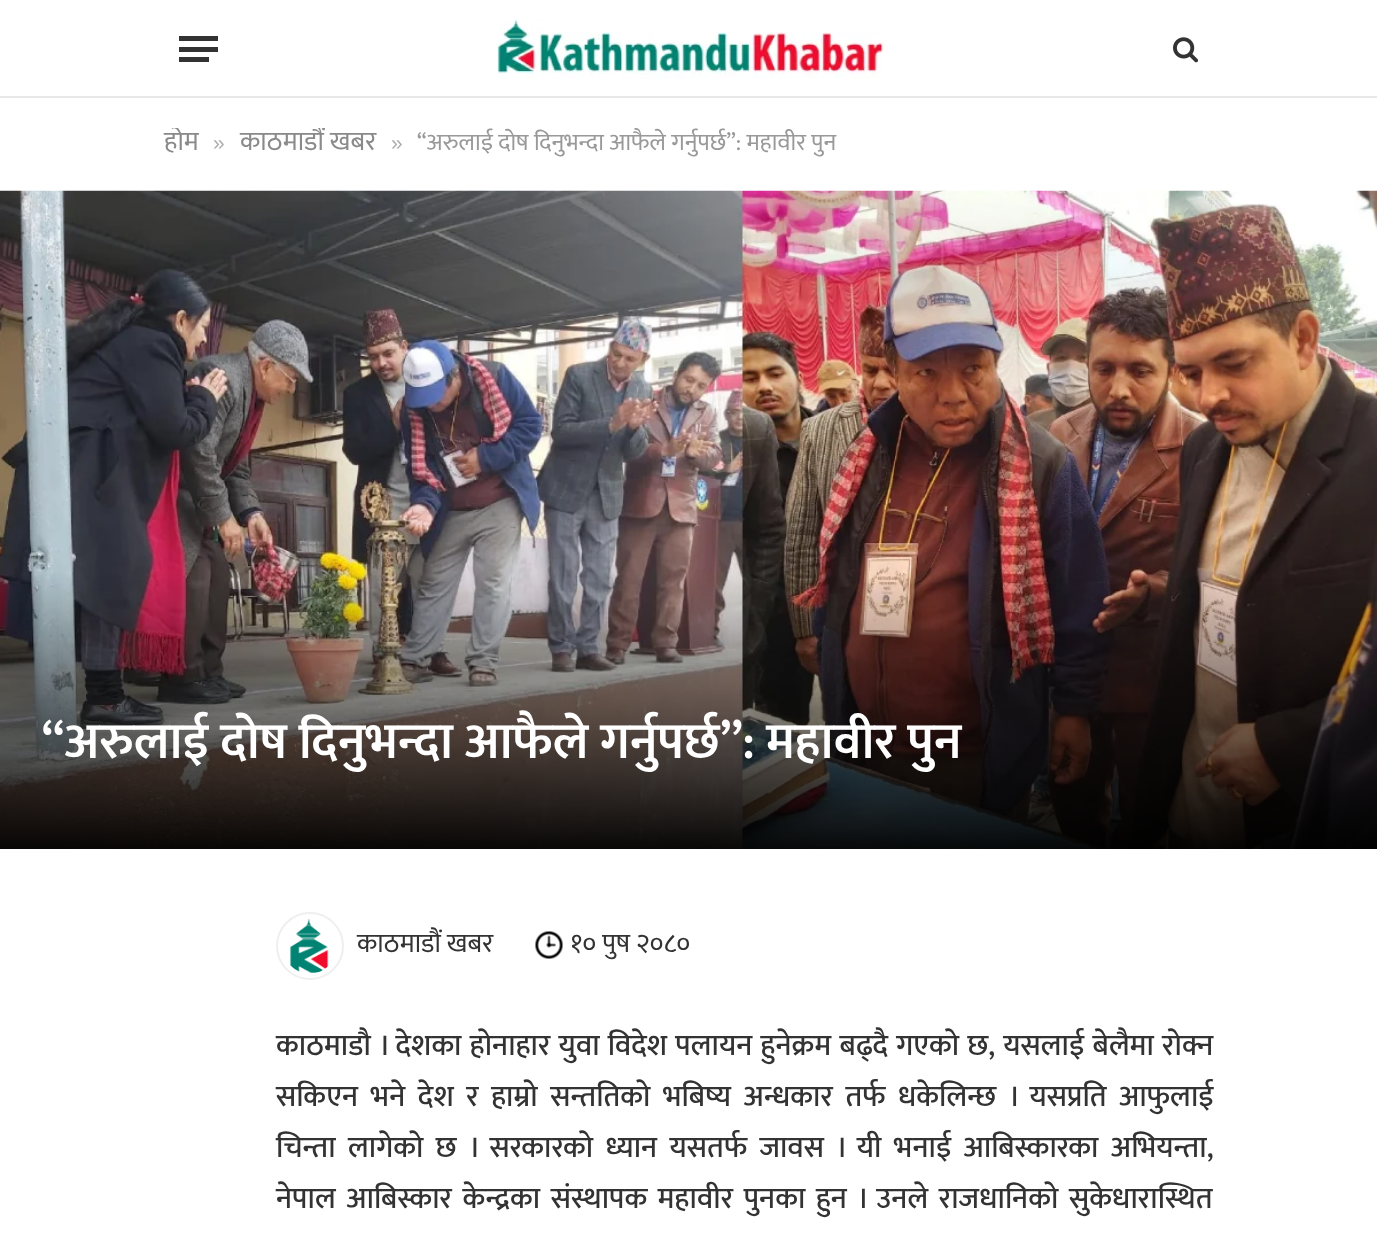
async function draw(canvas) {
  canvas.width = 1377;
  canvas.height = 1236;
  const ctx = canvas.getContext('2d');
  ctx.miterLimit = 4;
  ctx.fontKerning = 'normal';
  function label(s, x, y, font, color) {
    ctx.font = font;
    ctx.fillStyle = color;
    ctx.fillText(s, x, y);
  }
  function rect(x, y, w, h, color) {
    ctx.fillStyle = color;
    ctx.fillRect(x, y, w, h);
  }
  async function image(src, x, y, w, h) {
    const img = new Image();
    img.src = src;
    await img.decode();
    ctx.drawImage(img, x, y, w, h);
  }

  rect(0, 0, 1377, 1236, '#fff');
  rect(0, 96, 1377, 2, '#e8e8e8');
  rect(179, 57, 30, 5, '#333');
  rect(179, 36, 39, 5, '#333');
  rect(179, 47, 39, 5, '#333');
  await image('assets/img1.png', 497, 19, 389, 60);
  await image('assets/img2.png', 1173, 37, 26, 26);
  ctx.save();
  ctx.beginPath();
  ctx.rect(126, 128, 1125, 33);
  ctx.clip();
  label('होम', 164, 150, '27px Mukta', '#8a8a8a');
  ctx.restore();
  label('»', 213, 150, '21px Liberation Sans', '#adadad');
  ctx.save();
  ctx.beginPath();
  ctx.rect(126, 128, 1125, 33);
  ctx.clip();
  label('काठमाडौं खबर', 240, 150, '27px Mukta', '#8a8a8a');
  ctx.restore();
  label('»', 391, 150, '21px Liberation Sans', '#adadad');
  label('“अरुलाई दोष दिनुभन्दा आफैले गर्नुपर्छ”: महावीर पुन', 417, 150, '24px Mukta', '#999');
  await image('assets/img3.png', 0, 190, 1377, 659);
  label('“अरुलाई दोष दिनुभन्दा आफैले गर्नुपर्छ”: महावीर पुन', 42, 758, '600 51px Mukta', '#fff');
  ctx.beginPath();
  ctx.arc(310, 946, 33, 0, 2 * Math.PI);
  ctx.strokeStyle = '#efefef';
  ctx.lineWidth = 2;
  ctx.stroke();
  await image('assets/img4.png', 290, 919, 39, 55);
  label('काठमाडौं खबर', 357, 952, '27px Mukta', '#333');
  await image('assets/img5.png', 535, 931, 28, 28);
  label('१० पुष २०८०', 570, 952, '27px Mukta', '#333');
  ctx.wordSpacing = '1.4px';
  label('काठमाडौ । देशका होनाहार युवा विदेश पलायन हुनेक्रम बढ्दै गएको छ, यसलाई बेलैमा रोक्न', 276, 1055, '500 30px Mukta', '#333');
  ctx.wordSpacing = '5.75px';
  label('सकिएन भने देश र हाम्रो सन्ततिको भबिष्य अन्धकार तर्फ धकेलिन्छ । यसप्रति आफुलाई', 276, 1106, '500 30px Mukta', '#333');
  ctx.wordSpacing = '5.5px';
  label('चिन्ता लागेको छ । सरकारको ध्यान यसतर्फ जावस । यी भनाई आबिस्कारका अभियन्ता,', 276, 1157, '500 30px Mukta', '#333');
  ctx.wordSpacing = '3.75px';
  label('नेपाल आबिस्कार केन्द्रका संस्थापक महावीर पुनका हुन । उनले राजधानिको सुकेधारास्थित', 276, 1208, '500 30px Mukta', '#333');
}

draw(document.querySelector('canvas'));
